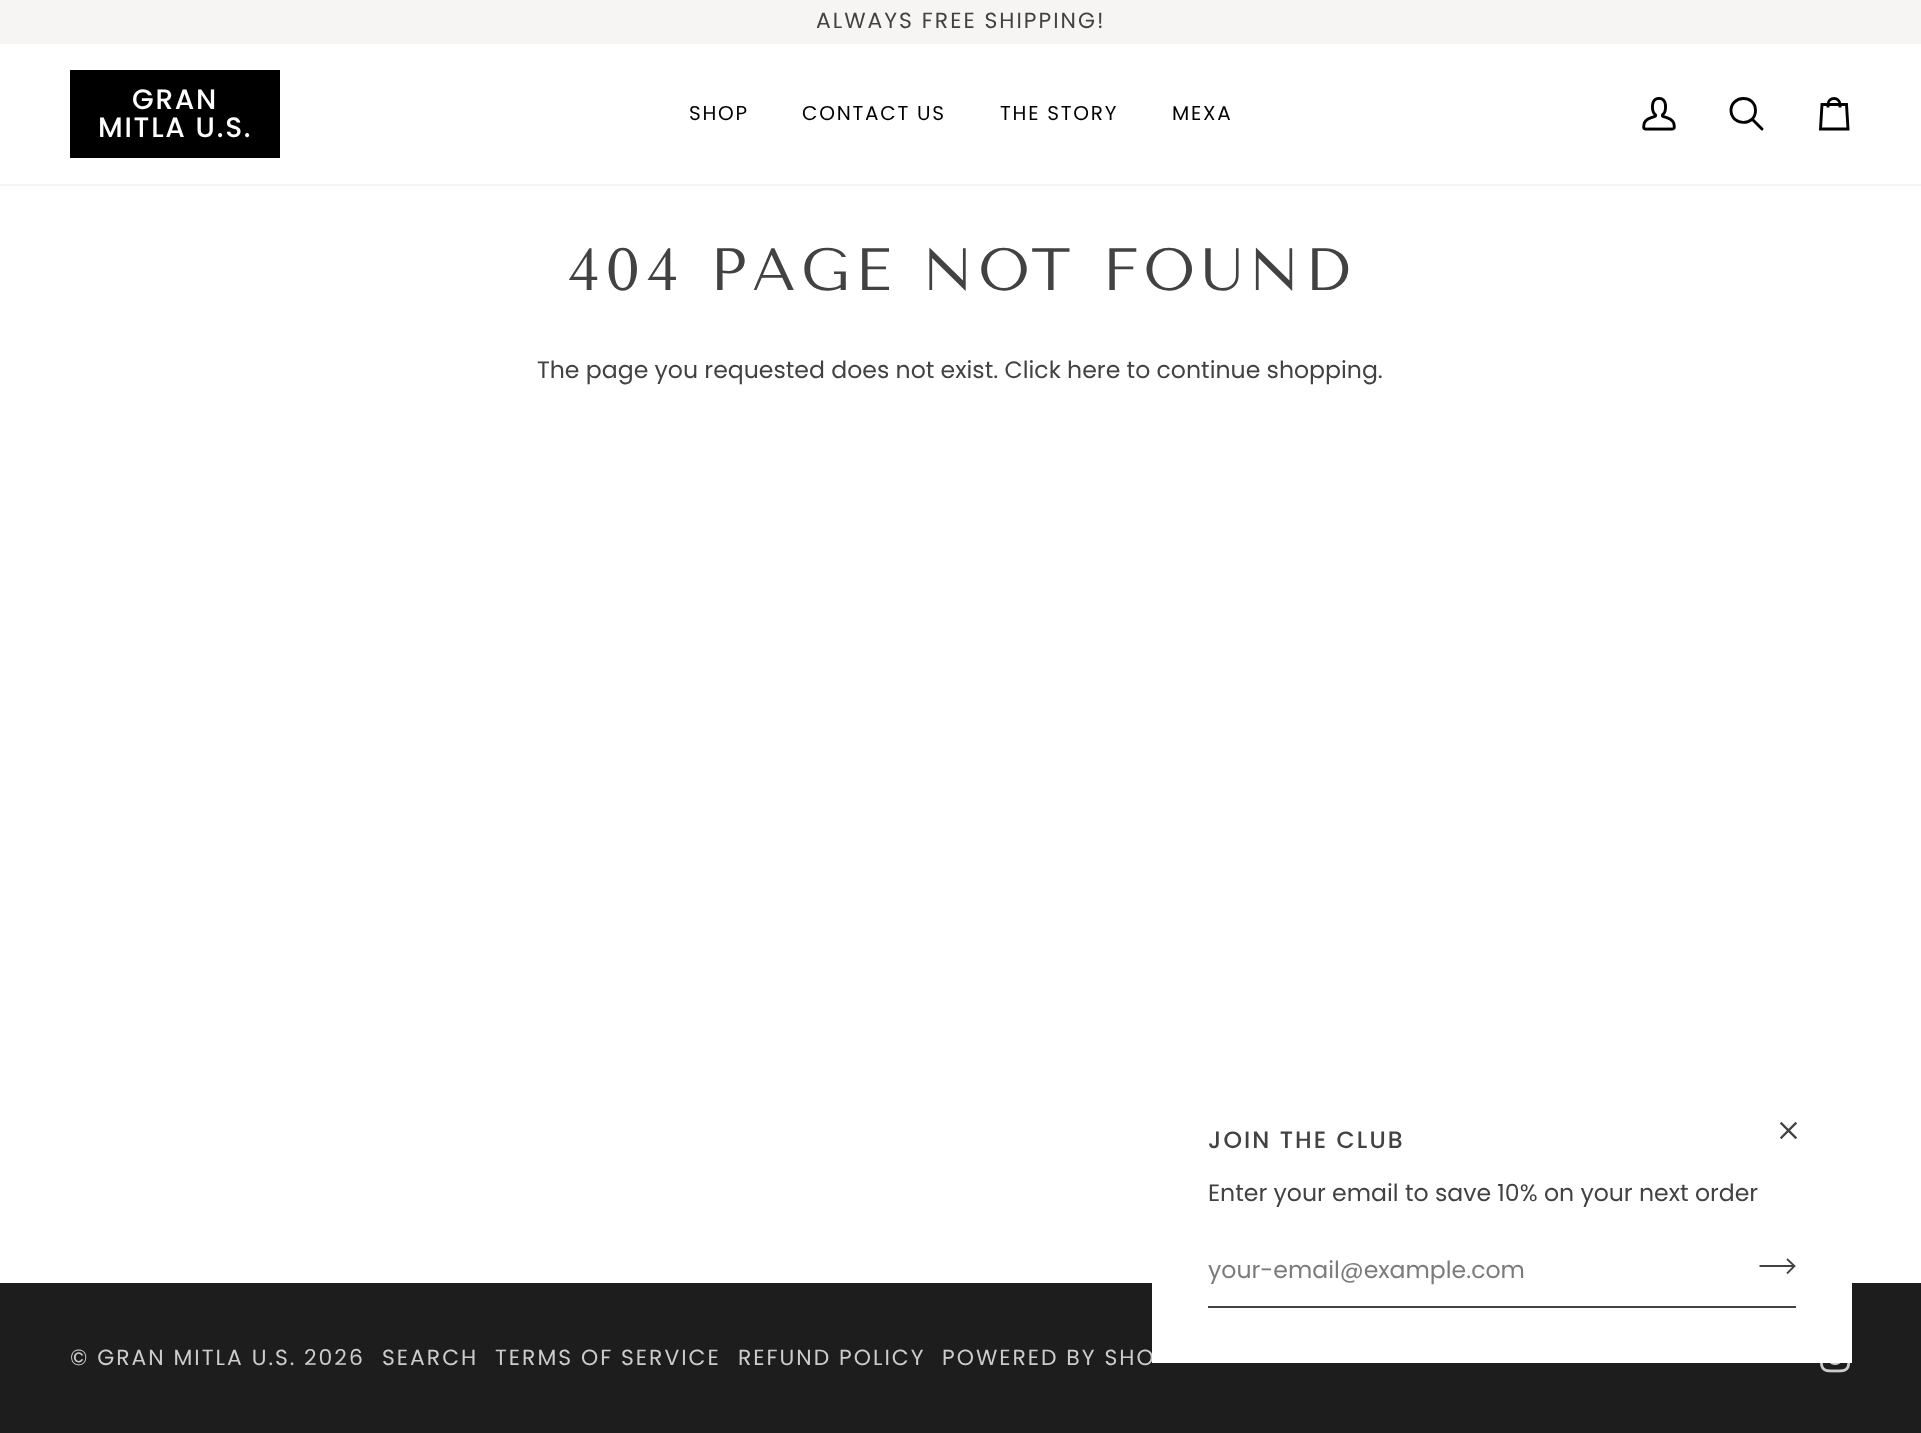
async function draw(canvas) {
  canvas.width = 1921;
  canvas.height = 1433;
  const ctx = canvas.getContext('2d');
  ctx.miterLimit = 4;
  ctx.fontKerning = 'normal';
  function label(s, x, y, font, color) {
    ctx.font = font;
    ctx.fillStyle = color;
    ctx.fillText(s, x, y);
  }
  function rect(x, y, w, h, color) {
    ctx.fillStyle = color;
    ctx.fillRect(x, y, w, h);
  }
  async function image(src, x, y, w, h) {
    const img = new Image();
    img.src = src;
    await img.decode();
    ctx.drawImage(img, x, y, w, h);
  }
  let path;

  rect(0, 0, 1921, 1433, '#fff');
  rect(0, 0, 1921, 44, '#f7f5f4');
  ctx.letterSpacing = '2px';
  label('ALWAYS FREE SHIPPING!', 816, 28, '21.9px Poppins', '#424242');
  rect(0, 184, 1921, 2, '#f7f5f4');
  rect(70, 70, 210, 88, '#000');
  ctx.letterSpacing = '1.75px';
  label('GRAN', 132, 109, '500 28px Poppins', '#fff');
  label('MITLA U.S.', 98, 137, '500 28px Poppins', '#fff');
  label('SHOP', 689, 120, '20px Poppins', '#000');
  label('CONTACT US', 802, 120, '20px Poppins', '#000');
  label('THE STORY', 1000, 120, '20px Poppins', '#000');
  label('MEXA', 1172, 120, '20px Poppins', '#000');
  await image('assets/img1.png', 1642, 97, 34, 34);
  path = new Path2D('M1755.5 110.5C1755.5 126 1732 126.5 1731 111C1730.5 95 1755.5 94 1755.5 110.5ZM1762 129L1752 119Z');
  ctx.strokeStyle = '#000';
  ctx.lineWidth = 2.9;
  ctx.lineCap = 'round';
  ctx.lineJoin = 'round';
  ctx.stroke(path);
  path = new Path2D('M1840 107.5V104.5H1846.5L1848 129H1820.5L1822 104.5H1828C1828 96.5 1840 96.5 1840 104.5H1828V107.5');
  ctx.lineCap = 'butt';
  ctx.lineJoin = 'miter';
  ctx.stroke(path);
  ctx.letterSpacing = '5.4px';
  label('404 PAGE NOT FOUND', 567, 290, '59.5px Tenor Sans', '#424242');
  ctx.letterSpacing = '0px';
  label('The page you requested does not exist. Click here to continue shopping.', 537, 378, '23.6px Poppins', '#424242');
  rect(0, 1283, 1921, 150, '#1d1d1d');
  ctx.letterSpacing = '2px';
  label('POWERED BY SHO', 942, 1365, '21.9px Poppins', '#ccc');
  rect(1152, 1283, 700, 80, '#fff');
  ctx.letterSpacing = '2.1px';
  label('JOIN THE CLUB', 1208, 1148, '500 23.6px Poppins', '#424242');
  path = new Path2D('M1795.5 1123.5L1781.5 1137.5M1781.5 1123.5L1795.5 1137.5');
  ctx.strokeStyle = '#424242';
  ctx.lineWidth = 2.3;
  ctx.lineCap = 'square';
  ctx.stroke(path);
  ctx.letterSpacing = '0px';
  label('Enter your email to save 10% on your next order', 1208, 1201, '23.6px Poppins', '#424242');
  rect(1208, 1306, 588, 2, '#424242');
  label('your-email@example.com', 1208, 1278, '23.6px Poppins', '#7b7b7b');
  path = new Path2D('M1787 1259L1794.5 1266L1787 1273.5M1759.5 1266H1794.5');
  ctx.lineWidth = 1.8;
  ctx.lineCap = 'butt';
  ctx.stroke(path);
  ctx.letterSpacing = '2px';
  label('© GRAN MITLA U.S.', 70, 1365, '21.9px Poppins', '#ccc');
  label('2026', 304, 1365, '21.9px Poppins', '#ccc');
  label('SEARCH', 382, 1365, '21.9px Poppins', '#ccc');
  label('TERMS OF SERVICE', 495, 1365, '21.9px Poppins', '#ccc');
  label('REFUND POLICY', 738, 1365, '21.9px Poppins', '#ccc');
  await image('assets/img2.png', 1820, 1363, 30, 10);
}

draw(document.querySelector('canvas'));
